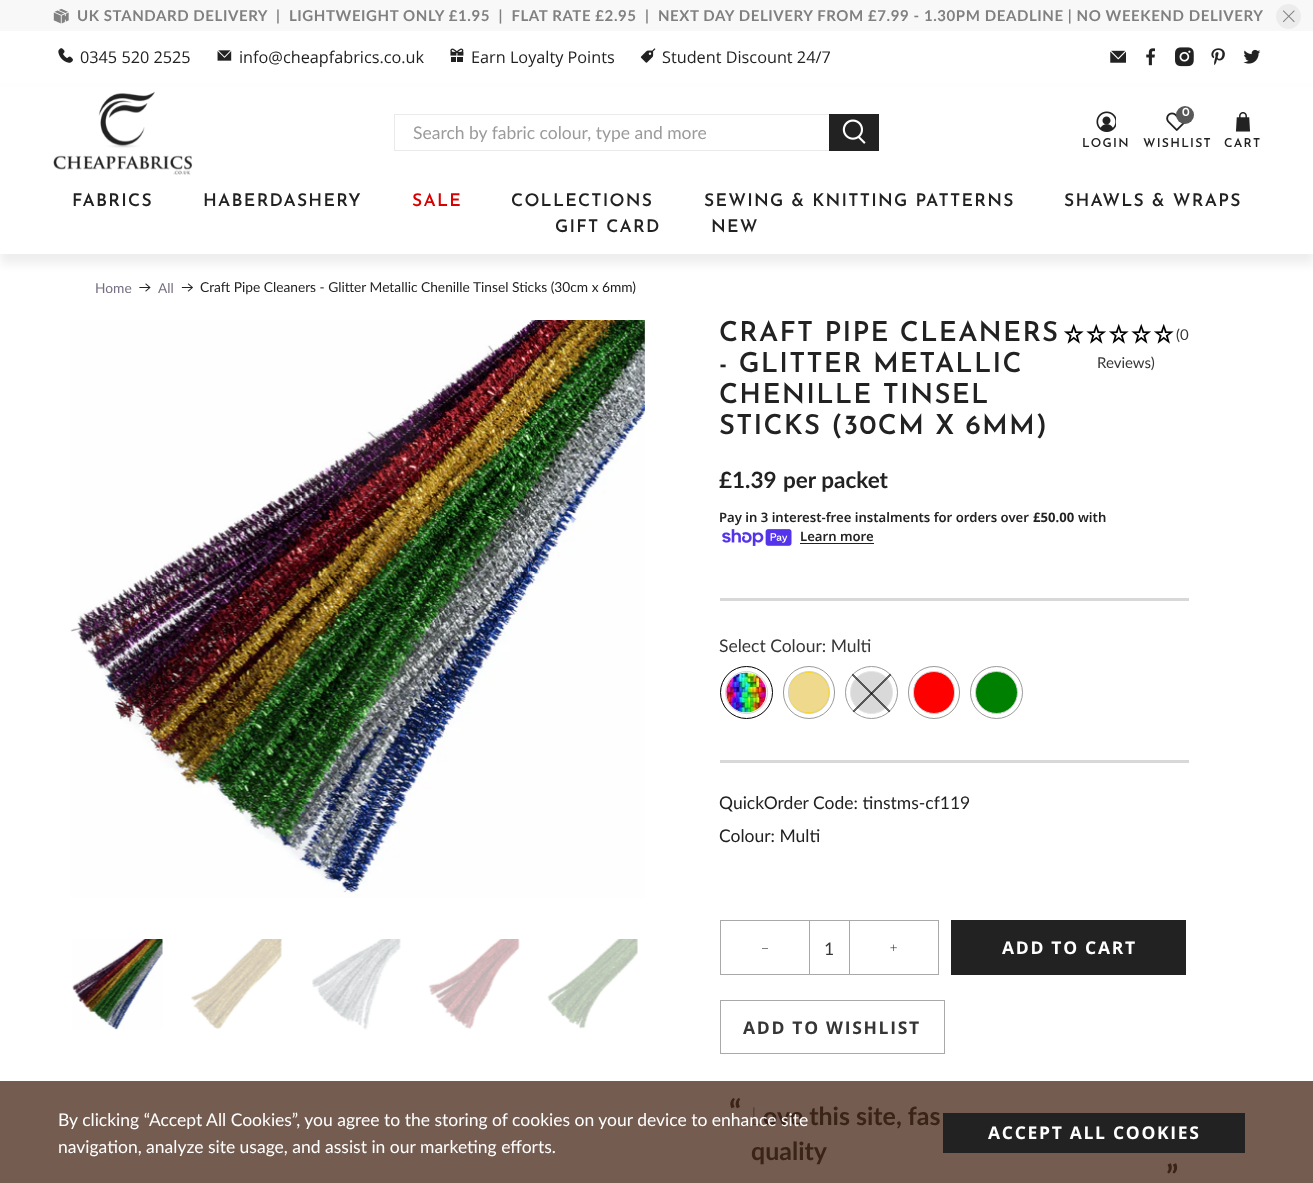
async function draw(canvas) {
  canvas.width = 1313;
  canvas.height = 1183;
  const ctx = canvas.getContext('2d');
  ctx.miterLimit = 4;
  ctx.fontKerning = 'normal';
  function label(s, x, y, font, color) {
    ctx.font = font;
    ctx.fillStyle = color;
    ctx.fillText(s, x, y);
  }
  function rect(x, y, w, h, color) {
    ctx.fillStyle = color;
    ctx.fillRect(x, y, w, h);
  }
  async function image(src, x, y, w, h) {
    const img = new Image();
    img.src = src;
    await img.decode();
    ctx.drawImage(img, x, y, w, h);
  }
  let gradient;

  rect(0, 0, 1313, 1183, '#fff');
  rect(0, 1081, 1313, 102, '#745c50');
  rect(0, 0, 1313, 31, '#f8f8f8');
  await image('assets/img1.png', 53, 8, 16, 16);
  ctx.letterSpacing = '0.58px';
  label('UK STANDARD DELIVERY  |  LIGHTWEIGHT ONLY £1.95  |  FLAT RATE £2.95  |  NEXT DAY DELIVERY FROM £7.99 - 1.30PM DEADLINE | NO WEEKEND DELIVERY', 77, 21, 'bold 15px Lato', '#808080');
  ctx.fillStyle = '#ececec';
  ctx.beginPath();
  ctx.arc(1288.5, 16.5, 12.5, 0, 2 * Math.PI);
  ctx.fill();
  await image('assets/img2.png', 1283, 10, 12, 13);
  await image('assets/img3.png', 58, 48, 15, 15);
  ctx.letterSpacing = '0px';
  label('0345 520 2525', 80, 63, '16.25px Open Sans', '#222');
  await image('assets/img4.png', 217, 50, 15, 11);
  label('info@cheapfabrics.co.uk', 239, 63, '16.25px Open Sans', '#222');
  await image('assets/img5.png', 450, 48, 14, 14);
  label('Earn Loyalty Points', 471, 63, '16.25px Open Sans', '#222');
  await image('assets/img6.png', 640, 48, 16, 15);
  label('Student Discount 24/7', 662, 63, '16.25px Open Sans', '#222');
  await image('assets/img7.png', 1110, 50, 16, 13);
  await image('assets/img8.png', 1146, 48, 9, 18);
  await image('assets/img9.png', 1175, 47, 19, 20);
  await image('assets/img10.png', 1211, 48, 14, 18);
  await image('assets/img11.png', 1243, 49, 18, 15);
  ctx.fillStyle = '#0a0a0a12';
  ctx.filter = 'blur(5px)';
  ctx.beginPath();
  ctx.rect(0, 91, 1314, 173);
  ctx.fill();
  ctx.filter = 'none';
  rect(0, 86, 1313, 168, '#fff');
  await image('assets/img12.png', 53, 91, 140, 84);
  ctx.strokeStyle = '#eaeaea';
  ctx.strokeRect(394.5, 114.5, 435, 36);
  label('Search by fabric colour, type and more', 413, 139, '17.5px Lato', '#9b9b9b');
  rect(829, 114, 50, 37, '#222');
  await image('assets/img13.png', 842, 119, 24, 25);
  await image('assets/img14.png', 1096, 111, 20, 21);
  ctx.letterSpacing = '1.25px';
  label('LOGIN', 1082, 147, '600 12.25px Josefin Sans', '#222');
  await image('assets/img15.png', 1166, 112, 19, 19);
  ctx.fillStyle = '#585858';
  ctx.beginPath();
  ctx.arc(1185, 115, 9, 0, 2 * Math.PI);
  ctx.fill();
  ctx.letterSpacing = '0px';
  label('0', 1182, 116, '600 12.25px Josefin Sans', '#fff');
  ctx.letterSpacing = '1.25px';
  label('WISHLIST', 1143, 147, '600 12.25px Josefin Sans', '#222');
  await image('assets/img16.png', 1235, 112, 15, 20);
  label('CART', 1224, 147, '600 12.25px Josefin Sans', '#222');
  label('FABRICS', 72, 206, '600 17.5px Josefin Sans', '#222');
  label('HABERDASHERY', 203, 206, '600 17.5px Josefin Sans', '#222');
  label('SALE', 412, 206, '600 17.5px Josefin Sans', '#da0000');
  label('COLLECTIONS', 511, 206, '600 17.5px Josefin Sans', '#222');
  label('SEWING & KNITTING PATTERNS', 704, 206, '600 17.5px Josefin Sans', '#222');
  label('SHAWLS & WRAPS', 1064, 206, '600 17.5px Josefin Sans', '#222');
  label('GIFT CARD', 555, 232, '600 17.5px Josefin Sans', '#222');
  label('NEW', 711, 232, '600 17.5px Josefin Sans', '#222');
  ctx.letterSpacing = '0px';
  label('Home', 95, 293, '13.75px Lato', '#757081');
  await image('assets/img17.png', 139, 283, 12, 9);
  label('All', 158, 293, '13.75px Lato', '#757081');
  await image('assets/img18.png', 181, 283, 12, 9);
  label('Craft Pipe Cleaners - Glitter Metallic Chenille Tinsel Sticks (30cm x 6mm)', 200, 292, '13.75px Lato', '#222');
  await image('assets/img19.png', 70, 320, 575, 578);
  await image('assets/img20.png', 72, 939, 91, 91);
  await image('assets/img21.png', 191, 939, 91, 90);
  await image('assets/img22.png', 312, 939, 89, 91);
  await image('assets/img23.png', 428, 939, 92, 90);
  await image('assets/img24.png', 547, 939, 91, 90);
  ctx.letterSpacing = '1.25px';
  label('CRAFT PIPE CLEANERS', 719, 341, '600 27.5px Josefin Sans', '#222');
  label('- GLITTER METALLIC', 719, 372, '600 27.5px Josefin Sans', '#222');
  label('CHENILLE TINSEL', 719, 403, '600 27.5px Josefin Sans', '#222');
  label('STICKS (30CM X 6MM)', 719, 434, '600 27.5px Josefin Sans', '#222');
  await image('assets/img25.png', 1064, 323, 20, 21);
  await image('assets/img26.png', 1086, 323, 20, 21);
  await image('assets/img25.png', 1109, 323, 20, 21);
  await image('assets/img26.png', 1131, 323, 20, 21);
  await image('assets/img25.png', 1154, 323, 20, 21);
  ctx.letterSpacing = '0px';
  label('(0', 1176, 340, '15px Lato', '#363636');
  label('Reviews)', 1097, 368, '15px Lato', '#363636');
  label('£1.39', 719, 488, 'bold 22.5px Lato', '#222');
  label('per packet', 783, 488, 'bold 22.5px Lato', '#222');
  label('Pay in 3 interest-free instalments for orders over', 719, 522, '600 13.1px Noto Sans', '#222');
  label('£50.00', 1033, 522, 'bold 13.1px Noto Sans', '#222');
  label('with', 1078, 522, '600 13.1px Noto Sans', '#222');
  await image('assets/img27.png', 722, 529, 70, 17);
  label('Learn more', 800, 541, '600 13.1px Noto Sans', '#222');
  rect(800, 543, 74, 1, '#222');
  rect(720, 598, 469, 3, '#d8d8d8');
  rect(720, 760, 469, 3, '#d8d8d8');
  label('Select Colour: Multi', 719, 652, '17.5px Lato', '#363636');
  ctx.beginPath();
  ctx.arc(746.5, 692.5, 26, 0, 2 * Math.PI);
  ctx.strokeStyle = '#000';
  ctx.stroke();
  ctx.beginPath();
  ctx.arc(746.5, 692.5, 21, 0, 2 * Math.PI);
  ctx.strokeStyle = '#d2d2d2';
  ctx.stroke();
  await image('assets/img28.png', 726, 672, 41, 41);
  ctx.beginPath();
  ctx.roundRect(783.5, 666.5, 51, 52, 25.5);
  ctx.strokeStyle = '#9a9a9a';
  ctx.stroke();
  ctx.fillStyle = '#ffd700';
  ctx.beginPath();
  ctx.roundRect(788.5, 671.5, 41, 42, 20.5);
  ctx.fill();
  ctx.strokeStyle = '#d2d2d2';
  ctx.stroke();
  await image('assets/img29.png', 788, 672, 41, 41);
  ctx.beginPath();
  ctx.arc(871.5, 692.5, 26, 0, 2 * Math.PI);
  ctx.strokeStyle = '#9a9a9a';
  ctx.stroke();
  ctx.fillStyle = '#d9d9d9';
  ctx.beginPath();
  ctx.arc(871.5, 692.5, 21, 0, 2 * Math.PI);
  ctx.fill();
  ctx.strokeStyle = '#e4e4e4';
  ctx.stroke();
  gradient = ctx.createLinearGradient(845, 666, 898, 719);
  gradient.addColorStop(0.5, '#00000000');
  gradient.addColorStop(0.5, '#00000099');
  gradient.addColorStop(0.52, '#00000099');
  gradient.addColorStop(0.52, '#00000000');
  ctx.fillStyle = gradient;
  ctx.beginPath();
  ctx.arc(871.5, 692.5, 26.5, 0, 2 * Math.PI);
  ctx.fill();
  gradient = ctx.createLinearGradient(898, 666, 845, 719);
  gradient.addColorStop(0.5, '#00000000');
  gradient.addColorStop(0.5, '#00000099');
  gradient.addColorStop(0.52, '#00000099');
  gradient.addColorStop(0.52, '#00000000');
  ctx.fillStyle = gradient;
  ctx.beginPath();
  ctx.arc(871.5, 692.5, 26.5, 0, 2 * Math.PI);
  ctx.fill();
  ctx.beginPath();
  ctx.roundRect(908.5, 666.5, 51, 52, 25.5);
  ctx.strokeStyle = '#9a9a9a';
  ctx.stroke();
  ctx.fillStyle = '#f00';
  ctx.beginPath();
  ctx.roundRect(913.5, 671.5, 41, 42, 20.5);
  ctx.fill();
  ctx.strokeStyle = '#d2d2d2';
  ctx.stroke();
  ctx.beginPath();
  ctx.arc(996.5, 692.5, 26, 0, 2 * Math.PI);
  ctx.strokeStyle = '#9a9a9a';
  ctx.stroke();
  ctx.fillStyle = '#008000';
  ctx.beginPath();
  ctx.arc(996.5, 692.5, 21, 0, 2 * Math.PI);
  ctx.fill();
  ctx.strokeStyle = '#d2d2d2';
  ctx.stroke();
  label('QuickOrder Code: tinstms-cf119', 719, 809, '17.5px Lato', '#222');
  label('Colour: Multi', 719, 842, '17.5px Lato', '#222');
  ctx.strokeStyle = '#a9a9a9';
  ctx.strokeRect(720.5, 920.5, 89, 54);
  rect(762, 948, 6, 1, '#808080');
  rect(810, 920, 39, 1, '#a9a9a9');
  rect(810, 974, 39, 1, '#a9a9a9');
  label('1', 824, 955, '17.5px Lato', '#363636');
  ctx.strokeRect(849.5, 920.5, 89, 54);
  await image('assets/img30.png', 890, 944, 7, 8);
  rect(951, 920, 235, 55, '#222');
  ctx.letterSpacing = '1.7px';
  label('ADD TO CART', 1002, 954, 'bold 17.5px Open Sans', '#fff');
  ctx.strokeRect(720.5, 1000.5, 224, 53);
  label('ADD TO WISHLIST', 743, 1034, 'bold 17.5px Open Sans', '#363636');
  ctx.letterSpacing = '0px';
  label('“', 729, 1123, 'bold 32px Lato', '#3a2317');
  label('L', 751, 1125, '100 25px Noto Sans', '#3a2317');
  label('ove this site, fas', 763, 1125, 'bold 25px Lato', '#3a2317');
  label('quality', 751, 1160, 'bold 25px Lato', '#3a2317');
  label('”', 1166, 1188, 'bold 32px Lato', '#3a2317');
  label('By clicking “Accept All Cookies”, you agree to the storing of cookies on your device to enhance site', 58, 1126, '17.5px Lato', '#fff');
  label('navigation, analyze site usage, and assist in our marketing efforts.', 58, 1153, '17.5px Lato', '#fff');
  rect(943, 1113, 302, 40, '#222');
  ctx.letterSpacing = '1.7px';
  label('ACCEPT ALL COOKIES', 988, 1139, 'bold 17.5px Open Sans', '#fff');
}

draw(document.querySelector('canvas'));
